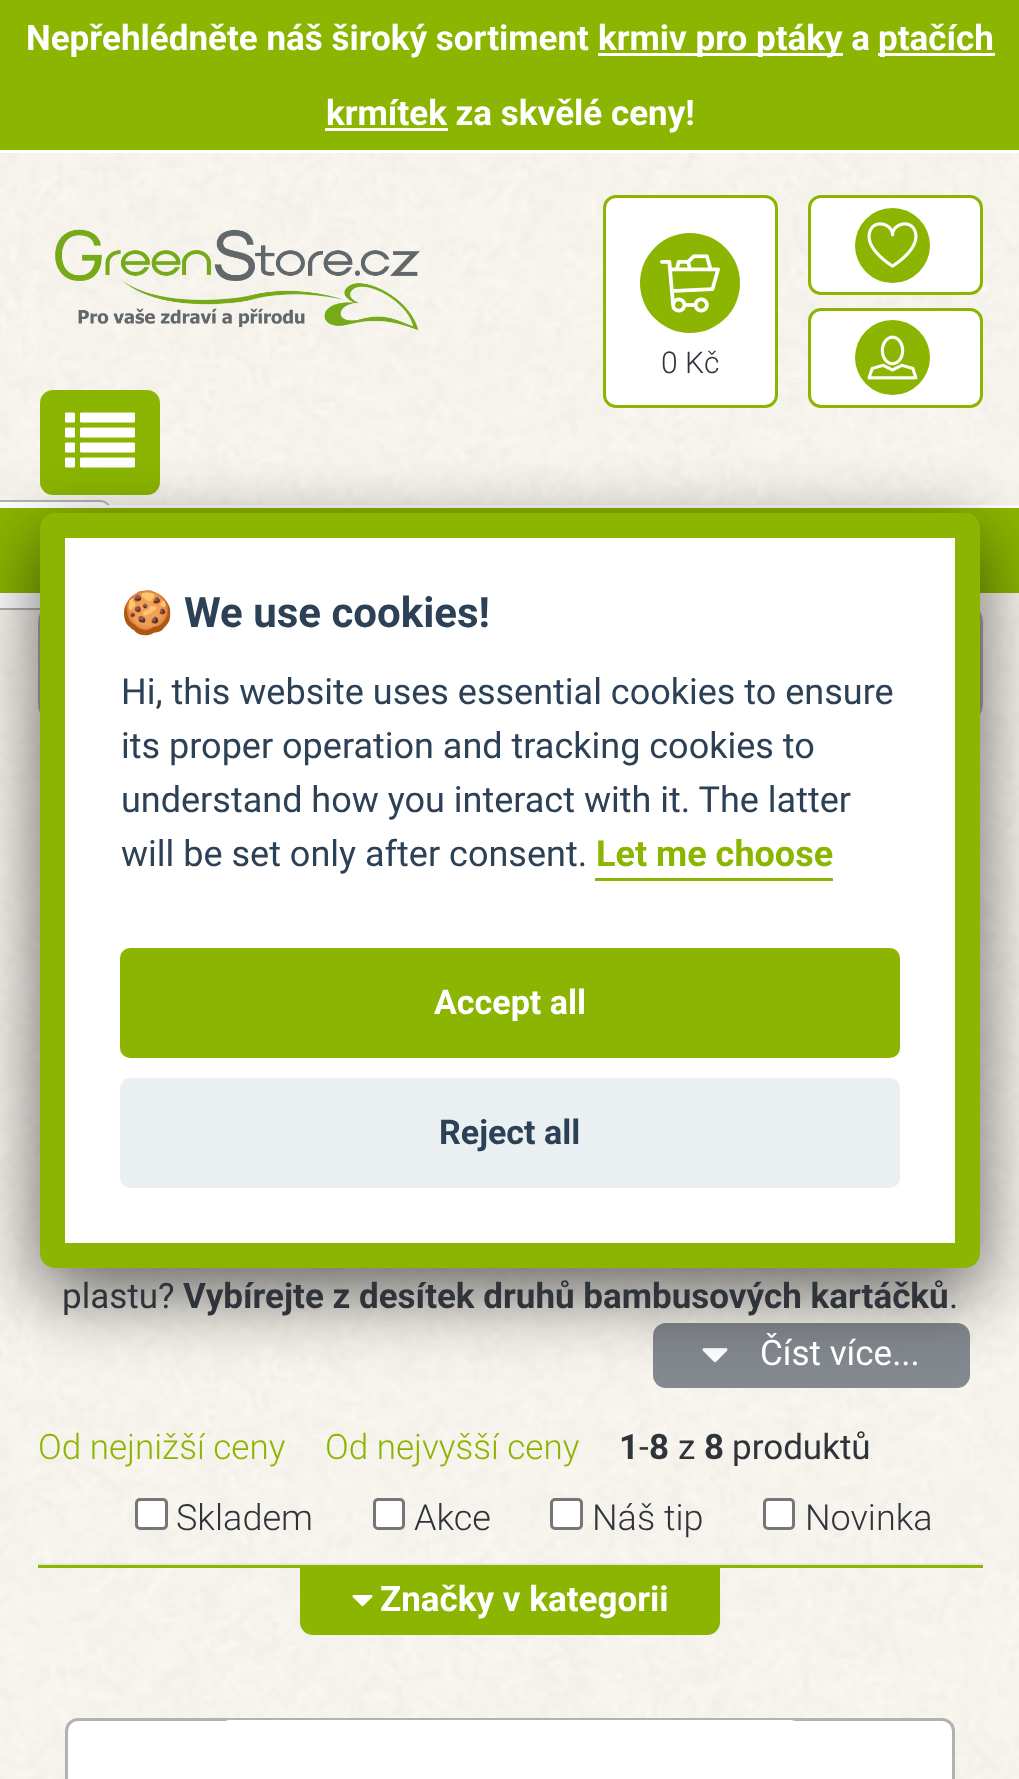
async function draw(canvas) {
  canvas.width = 1019;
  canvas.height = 1779;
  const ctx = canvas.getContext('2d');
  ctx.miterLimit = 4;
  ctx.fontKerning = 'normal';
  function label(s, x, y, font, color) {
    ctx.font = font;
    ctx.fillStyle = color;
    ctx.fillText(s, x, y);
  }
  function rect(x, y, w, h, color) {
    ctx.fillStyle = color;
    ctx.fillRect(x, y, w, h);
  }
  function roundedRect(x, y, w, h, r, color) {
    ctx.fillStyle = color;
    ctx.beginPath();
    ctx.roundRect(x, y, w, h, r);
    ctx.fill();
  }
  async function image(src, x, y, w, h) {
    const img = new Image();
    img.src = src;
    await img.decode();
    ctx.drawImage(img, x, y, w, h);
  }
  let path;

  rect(0, 0, 1019, 1779, '#fff');
  await image('assets/img1.png', 0, 153, 1019, 1626);
  rect(0, 0, 1019, 150, '#8bb500');
  label('Nepřehlédněte náš široký sortiment', 26, 50, 'bold 35px Roboto', '#fff');
  rect(598, 53, 245, 3, '#fff');
  label('krmiv pro ptáky a', 598, 50, 'bold 35px Roboto', '#fff');
  rect(878, 53, 117, 3, '#fff');
  label('ptačích', 878, 50, 'bold 35px Roboto', '#fff');
  rect(325, 128, 123, 3, '#fff');
  label('krmítek za skvělé ceny!', 326, 125, 'bold 35px Roboto', '#fff');
  await image('assets/img2.png', 55, 229, 365, 102);
  roundedRect(40, 390, 120, 105, 13, '#8bb500');
  await image('assets/img3.png', 65, 412, 70, 56);
  ctx.fillStyle = '#fff';
  ctx.beginPath();
  ctx.roundRect(604.5, 196.5, 172, 210, 11.5);
  ctx.fill();
  ctx.strokeStyle = '#8bb500';
  ctx.lineWidth = 3;
  ctx.stroke();
  ctx.fillStyle = '#8bb500';
  ctx.beginPath();
  ctx.arc(690, 283, 50, 0, 2 * Math.PI);
  ctx.fill();
  await image('assets/img4.png', 660, 254, 60, 59);
  label('0 Kč', 661, 373, '300 30px Roboto', '#2f343b');
  ctx.fillStyle = '#fff';
  ctx.beginPath();
  ctx.roundRect(809.5, 196.5, 172, 97, 11.5);
  ctx.fill();
  ctx.stroke();
  ctx.fillStyle = '#8bb500';
  ctx.beginPath();
  ctx.arc(892.5, 245.5, 37.5, 0, 2 * Math.PI);
  ctx.fill();
  await image('assets/img5.png', 867, 222, 51, 46);
  ctx.fillStyle = '#fff';
  ctx.beginPath();
  ctx.roundRect(809.5, 309.5, 172, 97, 11.5);
  ctx.fill();
  ctx.stroke();
  ctx.fillStyle = '#8bb500';
  ctx.beginPath();
  ctx.arc(892.5, 357.5, 37.5, 0, 2 * Math.PI);
  ctx.fill();
  await image('assets/img6.png', 867, 335, 51, 45);
  ctx.beginPath();
  ctx.roundRect(39.5, 599.5, 942, 127, 23.5);
  ctx.strokeStyle = '#aeaeae';
  ctx.stroke();
  ctx.fillStyle = '#fff';
  ctx.beginPath();
  ctx.roundRect(0, 500, 113, 110, [0, 13, 13, 0]);
  ctx.fill();
  ctx.fillStyle = '#b2b2b2';
  path = new Path2D('M0 500H100C107 500 112 506 112 512V598C112 604 107 610 100 610H0ZM0 502H100C106 502 110 507 110 512V598C110 603 106 608 100 608H0Z');
  ctx.fill(path, 'evenodd');
  rect(0, 508, 1019, 85, '#8bb500');
  rect(107, 505, 912, 3, '#fff');
  roundedRect(653, 1323, 317, 65, 13, '#84898f');
  await image('assets/img7.png', 702, 1348, 26, 15);
  ctx.fillStyle = '#02020399';
  ctx.filter = 'blur(37.5px)';
  ctx.beginPath();
  ctx.roundRect(40, 538, 940, 755, 15);
  ctx.fill();
  ctx.filter = 'none';
  ctx.fillStyle = '#fff';
  ctx.beginPath();
  ctx.roundRect(52.5, 525.5, 915, 730, 2.5);
  ctx.fill();
  ctx.strokeStyle = '#8bb500';
  ctx.lineWidth = 25;
  ctx.stroke();
  label('🍪', 121, 627, 'bold 42px Noto Color Emoji', '#2d4156');
  label('We use cookies!', 184, 627, 'bold 42px Roboto', '#2d4156');
  label('Hi, this website uses essential cookies to ensure', 121, 704, '36px Roboto', '#2d4156');
  label('its proper operation and tracking cookies to', 121, 758, '36px Roboto', '#2d4156');
  label('understand how you interact with it. The latter', 121, 812, '36px Roboto', '#2d4156');
  label('will be set only after consent.', 121, 866, '36px Roboto', '#2d4156');
  label('Let me choose', 596, 866, 'bold 36px Roboto', '#8bb500');
  rect(595, 878, 238, 3, '#8bb500');
  roundedRect(120, 948, 780, 110, 10, '#8bb500');
  label('Accept all', 434, 1014, 'bold 34px Roboto', '#fff');
  roundedRect(120, 1078, 780, 110, 10, '#eaeff2');
  label('Reject all', 439, 1144, 'bold 34px Roboto', '#2d4156');
  label('plastu?', 62, 1308, '35px Roboto', '#2f343b');
  label('Vybírejte z desítek druhů bambusových kartáčků', 183, 1308, 'bold 35px Roboto', '#2f343b');
  label('.', 949, 1308, '35px Roboto', '#2f343b');
  label('Číst více...', 760, 1365, '35px Roboto', '#fff');
  label('Od nejnižší ceny', 38, 1459, '300 35px Roboto', '#8bb500');
  label('Od nejvyšší ceny', 325, 1459, '300 35px Roboto', '#8bb500');
  label('1', 619, 1459, 'bold 35px Roboto', '#2f343b');
  label('-', 639, 1459, '35px Roboto', '#2f343b');
  label('8', 649, 1459, 'bold 35px Roboto', '#2f343b');
  label('z', 678, 1459, '35px Roboto', '#2f343b');
  label('8', 704, 1459, 'bold 35px Roboto', '#2f343b');
  label('produktů', 732, 1459, '35px Roboto', '#2f343b');
  ctx.fillStyle = '#fff';
  ctx.beginPath();
  ctx.roundRect(136.5, 1499.5, 30, 29, 3.5);
  ctx.fill();
  ctx.strokeStyle = '#767676';
  ctx.lineWidth = 3;
  ctx.stroke();
  label('Skladem', 176, 1530, '300 36px Roboto', '#2f343b');
  ctx.fillStyle = '#fff';
  ctx.beginPath();
  ctx.roundRect(374.5, 1499.5, 29, 29, 3.5);
  ctx.fill();
  ctx.stroke();
  label('Akce', 414, 1530, '300 36px Roboto', '#2f343b');
  ctx.fillStyle = '#fff';
  ctx.beginPath();
  ctx.roundRect(551.5, 1499.5, 30, 29, 3.5);
  ctx.fill();
  ctx.stroke();
  label('Náš tip', 592, 1530, '300 36px Roboto', '#2f343b');
  ctx.fillStyle = '#fff';
  ctx.beginPath();
  ctx.roundRect(764.5, 1499.5, 29, 29, 3.5);
  ctx.fill();
  ctx.stroke();
  label('Novinka', 805, 1530, '300 36px Roboto', '#2f343b');
  rect(38, 1563, 945, 2, '#e6e6e6');
  rect(38, 1565, 945, 3, '#8bb500');
  ctx.beginPath();
  ctx.roundRect(301.5, 1566.5, 417, 67, [0, 0, 11.5, 11.5]);
  ctx.fill();
  ctx.strokeStyle = '#8bb500';
  ctx.stroke();
  await image('assets/img8.png', 352, 1595, 21, 12);
  label('Značky v kategorii', 380, 1611, 'bold 35px Roboto', '#fff');
  ctx.beginPath();
  ctx.roundRect(66.5, 1719.5, 887, 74, 11.5);
  ctx.fill();
  ctx.strokeStyle = '#b2b2b2';
  ctx.stroke();
  await image('assets/img9.png', 225, 1720, 570, 1);
}

draw(document.querySelector('canvas'));
